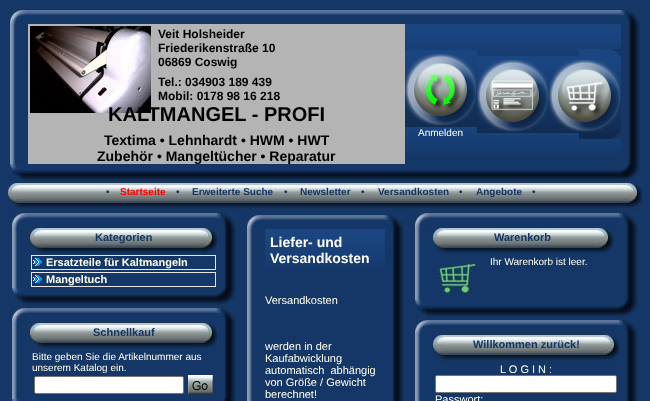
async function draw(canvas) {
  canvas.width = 650;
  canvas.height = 401;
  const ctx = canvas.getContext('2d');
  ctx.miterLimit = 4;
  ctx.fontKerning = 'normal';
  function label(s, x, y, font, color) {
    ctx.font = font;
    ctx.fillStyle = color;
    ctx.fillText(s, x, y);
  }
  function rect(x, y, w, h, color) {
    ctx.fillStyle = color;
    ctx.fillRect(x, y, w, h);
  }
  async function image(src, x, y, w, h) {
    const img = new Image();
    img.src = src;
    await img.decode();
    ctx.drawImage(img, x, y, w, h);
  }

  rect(0, 0, 650, 401, '#153767');
  await image('assets/img1.png', 8, 8, 20, 16);
  await image('assets/img2.png', 28, 10, 593, 5);
  await image('assets/img3.png', 621, 8, 19, 16);
  await image('assets/img4.png', 9, 24, 6, 140);
  await image('assets/img5.png', 405, 24, 216, 129);
  rect(28, 24, 377, 140, '#b4b4b4');
  await image('assets/img6.png', 30, 26, 121, 87);
  label('Veit Holsheider', 158, 38, 'bold 12px Liberation Sans', '#000');
  label('Friederikenstraße 10', 158, 52, 'bold 12px Liberation Sans', '#000');
  label('06869 Coswig', 158, 66, 'bold 12px Liberation Sans', '#000');
  label('Tel.: 034903 189 439', 158, 86, 'bold 12px Liberation Sans', '#000');
  label('Mobil: 0178 98 16 218', 158, 100, 'bold 12px Liberation Sans', '#000');
  label('KALTMANGEL - PROFI', 108, 121, 'bold 20px Liberation Sans', '#000');
  label('Textima • Lehnhardt • HWM • HWT', 104, 145, 'bold 14px Liberation Sans', '#000');
  label('Zubehör • Mangeltücher • Reparatur', 97, 161, 'bold 14px Liberation Sans', '#000');
  await image('assets/img7.png', 579, 49, 42, 90);
  await image('assets/img8.png', 405, 50, 72, 77);
  label('Anmelden', 418, 136, '10px Liberation Sans', '#fff');
  await image('assets/img9.png', 477, 56, 72, 77);
  await image('assets/img10.png', 549, 56, 72, 77);
  await image('assets/img11.png', 628, 24, 12, 140);
  await image('assets/img12.png', 8, 164, 20, 17);
  await image('assets/img13.png', 28, 170, 593, 11);
  await image('assets/img14.png', 621, 164, 19, 18);
  await image('assets/img15.png', 8, 182, 20, 27);
  await image('assets/img16.png', 28, 182, 594, 27);
  label('•', 106, 195, 'bold 10px Liberation Sans', '#143665');
  label('Startseite', 120, 195, 'bold 10px Liberation Sans', '#f00');
  label('•', 176, 195, 'bold 10px Liberation Sans', '#143665');
  label('Erweiterte Suche', 192, 195, 'bold 10px Liberation Sans', '#143665');
  label('•', 284, 195, 'bold 10px Liberation Sans', '#143665');
  label('Newsletter', 300, 195, 'bold 10px Liberation Sans', '#143665');
  label('•', 361, 195, 'bold 10px Liberation Sans', '#143665');
  label('Versandkosten', 378, 195, 'bold 10px Liberation Sans', '#143665');
  label('•', 459, 195, 'bold 10px Liberation Sans', '#143665');
  label('Angebote', 476, 195, 'bold 10px Liberation Sans', '#143665');
  label('•', 532, 195, 'bold 10px Liberation Sans', '#143665');
  await image('assets/img17.png', 622, 182, 20, 27);
  await image('assets/img1.png', 10, 211, 20, 16);
  await image('assets/img18.png', 30, 213, 187, 5);
  await image('assets/img3.png', 217, 211, 19, 16);
  await image('assets/img19.png', 11, 227, 6, 61);
  await image('assets/img15.png', 30, 227, 20, 27);
  await image('assets/img20.png', 50, 227, 147, 27);
  label('Kategorien', 95, 241, 'bold 11px Liberation Sans', '#143665');
  await image('assets/img17.png', 197, 227, 20, 27);
  ctx.strokeStyle = '#e6e6e6';
  ctx.strokeRect(31.5, 255.5, 184, 14);
  await image('assets/img21.png', 33, 258, 9, 8);
  label('Ersatzteile für Kaltmangeln', 46, 266, 'bold 11px Liberation Sans', '#ffffef');
  ctx.strokeRect(31.5, 272.5, 184, 14);
  await image('assets/img21.png', 33, 275, 9, 8);
  label('Mangeltuch', 46, 283, 'bold 11px Liberation Sans', '#ffffef');
  await image('assets/img22.png', 224, 227, 12, 61);
  await image('assets/img12.png', 10, 288, 20, 17);
  await image('assets/img23.png', 30, 294, 187, 11);
  await image('assets/img14.png', 217, 288, 19, 18);
  await image('assets/img1.png', 10, 306, 20, 16);
  await image('assets/img18.png', 30, 308, 187, 5);
  await image('assets/img3.png', 217, 306, 19, 16);
  await image('assets/img24.png', 11, 322, 6, 77);
  await image('assets/img15.png', 30, 322, 20, 27);
  await image('assets/img20.png', 50, 322, 147, 27);
  label('Schnellkauf', 93, 336, 'bold 11px Liberation Sans', '#143665');
  await image('assets/img17.png', 197, 322, 20, 27);
  label('Bitte geben Sie die Artikelnummer aus', 32, 360, '10px Liberation Sans', '#ffffef');
  label('unserem Katalog ein.', 32, 371, '10px Liberation Sans', '#ffffef');
  ctx.fillStyle = '#fff';
  ctx.beginPath();
  ctx.roundRect(34.5, 376.5, 149, 17, 1.5);
  ctx.fill();
  ctx.strokeStyle = '#767676';
  ctx.stroke();
  await image('assets/img25.png', 188, 375, 25, 20);
  await image('assets/img26.png', 224, 322, 12, 77);
  await image('assets/img27.png', 12, 399, 14, 2);
  await image('assets/img28.png', 217, 399, 19, 2);
  await image('assets/img1.png', 245, 213, 20, 16);
  await image('assets/img29.png', 265, 215, 120, 5);
  await image('assets/img3.png', 385, 213, 19, 16);
  await image('assets/img30.png', 246, 229, 6, 172);
  await image('assets/img31.png', 265, 229, 120, 39);
  label('Liefer- und', 270, 247, 'bold 14px Liberation Sans', '#fff');
  label('Versandkosten', 270, 263, 'bold 14px Liberation Sans', '#fff');
  label('Versandkosten', 265, 304, '11px Liberation Sans', '#ffffef');
  label('werden in der', 265, 350, '11px Liberation Sans', '#ffffef');
  label('Kaufabwicklung', 265, 362, '11px Liberation Sans', '#ffffef');
  label('automatisch  abhängig', 265, 374, '11px Liberation Sans', '#ffffef');
  label('von Größe / Gewicht', 265, 386, '11px Liberation Sans', '#ffffef');
  label('berechnet!', 265, 398, '11px Liberation Sans', '#ffffef');
  await image('assets/img32.png', 392, 229, 12, 172);
  await image('assets/img1.png', 413, 211, 20, 16);
  await image('assets/img33.png', 433, 213, 186, 5);
  await image('assets/img3.png', 619, 211, 19, 16);
  await image('assets/img34.png', 414, 227, 6, 73);
  await image('assets/img15.png', 433, 227, 20, 27);
  await image('assets/img35.png', 453, 227, 140, 27);
  label('Warenkorb', 494, 241, 'bold 11px Liberation Sans', '#143665');
  await image('assets/img17.png', 593, 227, 20, 27);
  await image('assets/img36.png', 435, 256, 41, 42);
  label('Ihr Warenkorb ist leer.', 490, 265, '10px Liberation Sans', '#ffffef');
  await image('assets/img37.png', 626, 227, 12, 73);
  await image('assets/img12.png', 413, 300, 20, 17);
  await image('assets/img38.png', 433, 306, 186, 11);
  await image('assets/img14.png', 619, 300, 19, 18);
  await image('assets/img1.png', 413, 318, 20, 16);
  await image('assets/img33.png', 433, 320, 186, 5);
  await image('assets/img3.png', 619, 318, 19, 16);
  await image('assets/img39.png', 414, 334, 6, 67);
  await image('assets/img15.png', 433, 334, 20, 27);
  await image('assets/img40.png', 453, 334, 146, 27);
  label('Willkommen zurück!', 473, 348, 'bold 11px Liberation Sans', '#143665');
  await image('assets/img17.png', 599, 334, 20, 27);
  label('L O G I N :', 500, 373, '11px Liberation Sans', '#ffffef');
  ctx.fillStyle = '#fff';
  ctx.beginPath();
  ctx.roundRect(435.5, 375.5, 181, 17, 1.5);
  ctx.fill();
  ctx.stroke();
  label('Passwort:', 435, 403, '11px Liberation Sans', '#ffffef');
  await image('assets/img41.png', 626, 334, 12, 67);
}

draw(document.querySelector('canvas'));
